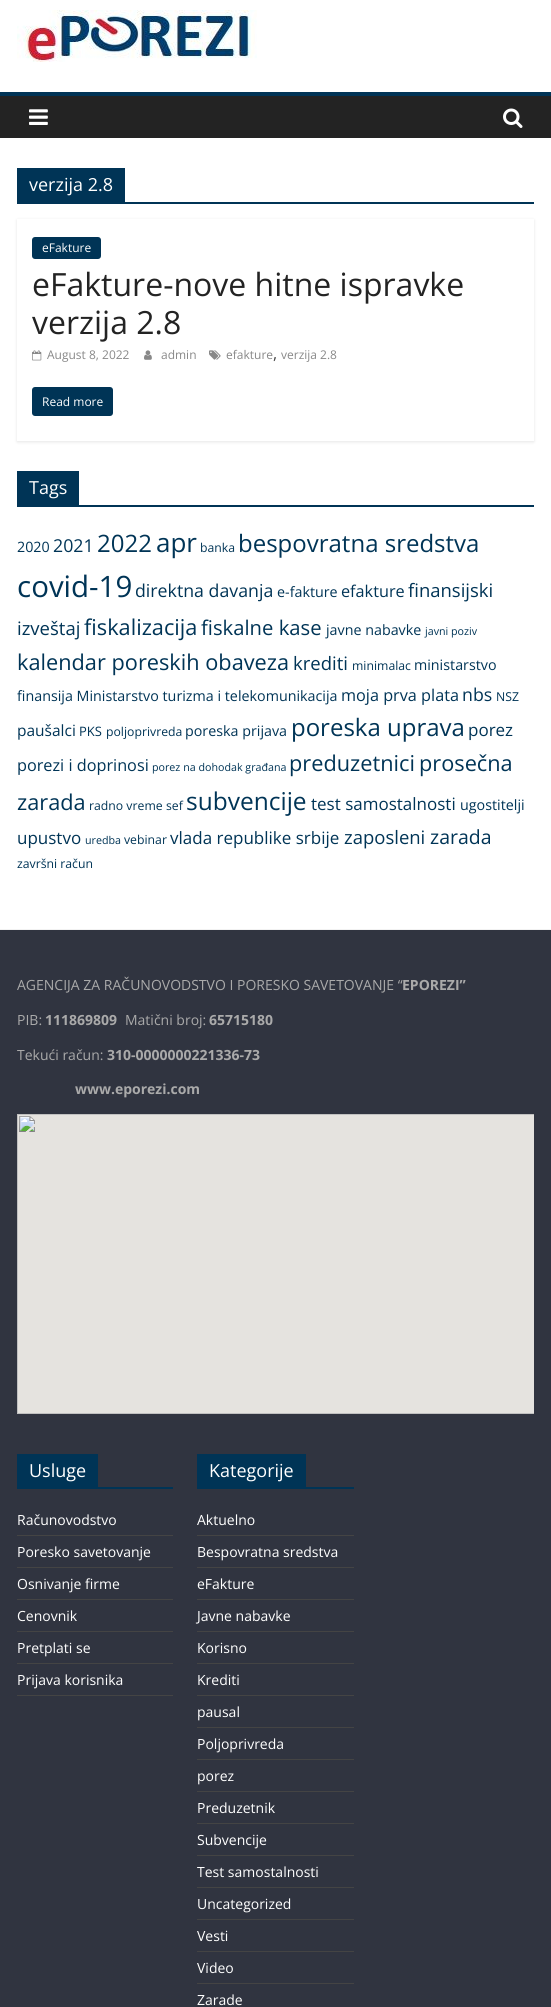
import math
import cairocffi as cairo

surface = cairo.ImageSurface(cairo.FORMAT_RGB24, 551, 2007)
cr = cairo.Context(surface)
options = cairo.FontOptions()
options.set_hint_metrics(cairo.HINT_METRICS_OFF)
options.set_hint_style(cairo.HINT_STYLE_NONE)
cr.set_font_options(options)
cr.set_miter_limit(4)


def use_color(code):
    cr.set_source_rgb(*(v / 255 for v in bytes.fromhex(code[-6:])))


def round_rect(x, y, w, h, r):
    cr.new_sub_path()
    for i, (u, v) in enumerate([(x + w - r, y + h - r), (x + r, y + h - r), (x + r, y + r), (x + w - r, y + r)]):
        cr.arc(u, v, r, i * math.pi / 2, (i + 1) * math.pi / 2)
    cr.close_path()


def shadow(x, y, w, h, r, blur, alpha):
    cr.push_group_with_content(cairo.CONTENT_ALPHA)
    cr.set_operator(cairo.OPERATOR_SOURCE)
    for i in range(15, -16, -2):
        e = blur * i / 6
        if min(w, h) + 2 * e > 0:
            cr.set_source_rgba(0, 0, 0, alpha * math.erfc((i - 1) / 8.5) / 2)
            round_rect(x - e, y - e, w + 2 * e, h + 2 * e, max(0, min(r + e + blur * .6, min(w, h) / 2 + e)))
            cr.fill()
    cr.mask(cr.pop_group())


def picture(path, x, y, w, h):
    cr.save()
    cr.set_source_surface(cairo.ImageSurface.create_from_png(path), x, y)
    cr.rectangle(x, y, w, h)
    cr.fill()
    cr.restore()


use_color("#ffffff")
cr.paint()
picture("img1.png", 17, 10, 240, 52)
use_color("#232323")
cr.rectangle(0, 96, 551, 42)
cr.fill()
use_color("#003456")
cr.rectangle(0, 92, 551, 4)
cr.fill()
picture("img2.png", 29, 109, 19, 16)
picture("img3.png", 503, 108, 20, 20)
cr.rectangle(17, 202, 517, 2)
cr.fill()
cr.rectangle(17, 168, 108, 34)
cr.fill()
cr.select_font_face("Open Sans")
cr.set_font_size(18)
use_color("#ffffff")
cr.move_to(29, 191)
cr.show_text("verzija 2.8")
cr.save()
cr.set_fill_rule(cairo.FILL_RULE_EVEN_ODD)
cr.new_path()
cr.move_to(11, 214)
cr.line_to(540, 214)
cr.line_to(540, 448)
cr.line_to(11, 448)
cr.close_path()
cr.move_to(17, 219)
cr.line_to(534, 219)
cr.line_to(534, 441)
cr.line_to(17, 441)
cr.close_path()
cr.clip()
use_color("#000000")
shadow(17, 220, 517, 222, 0, 1.5, 0.1)
cr.restore()
use_color("#003456")
round_rect(32, 237, 69, 22, 3)
cr.fill()
cr.set_font_size(12)
use_color("#ffffff")
cr.move_to(42, 252)
cr.show_text("eFakture")
cr.set_font_size(32)
use_color("#232323")
cr.move_to(32, 296)
cr.show_text("eFakture-nove hitne ispravke")
cr.move_to(32, 334)
cr.show_text("verzija 2.8")
picture("img4.png", 32, 350, 10, 11)
cr.set_font_size(12)
use_color("#888888")
cr.move_to(47, 359)
cr.show_text("August 8, 2022")
picture("img5.png", 144, 350, 8, 10)
cr.move_to(161, 359)
cr.show_text("admin")
picture("img6.png", 209, 350, 12, 10)
cr.move_to(226, 359)
cr.show_text("efakture")
cr.set_font_size(16)
use_color("#444444")
cr.move_to(273, 359)
cr.show_text(",")
cr.set_font_size(12)
use_color("#888888")
cr.move_to(281, 359)
cr.show_text("verzija 2.8")
use_color("#003456")
round_rect(32, 387, 81, 29, 3)
cr.fill()
use_color("#ffffff")
cr.move_to(42, 406)
cr.show_text("Read more")
use_color("#003456")
cr.rectangle(17, 505, 517, 2)
cr.fill()
cr.rectangle(17, 471, 62, 34)
cr.fill()
cr.set_font_size(18)
use_color("#ffffff")
cr.move_to(29, 494)
cr.show_text("Tags")
cr.set_font_size(14.3)
use_color("#003456")
cr.move_to(17, 552)
cr.show_text("2020")
cr.set_font_size(17.75)
cr.move_to(53, 552)
cr.show_text("2021")
cr.set_font_size(24)
cr.move_to(97, 552)
cr.show_text("2022")
cr.set_font_size(26)
cr.move_to(156, 552)
cr.show_text("apr")
cr.set_font_size(12.25)
cr.move_to(200, 552)
cr.show_text("banka")
cr.set_font_size(24)
cr.move_to(238, 552)
cr.show_text("bespovratna sredstva")
cr.set_font_size(29.5)
cr.move_to(17, 597)
cr.show_text("covid-19")
cr.set_font_size(17.75)
cr.move_to(135, 597)
cr.show_text("direktna davanja")
cr.set_font_size(14.3)
cr.move_to(277, 597)
cr.show_text("e-fakture")
cr.set_font_size(16.25)
cr.move_to(341, 597)
cr.show_text("efakture")
cr.set_font_size(18.5)
cr.move_to(408, 597)
cr.show_text("finansijski")
cr.move_to(17, 635)
cr.show_text("izveštaj")
cr.set_font_size(21.75)
cr.move_to(84, 635)
cr.show_text("fiskalizacija")
cr.set_font_size(20.25)
cr.move_to(201, 635)
cr.show_text("fiskalne kase")
cr.set_font_size(14.3)
cr.move_to(326, 635)
cr.show_text("javne nabavke")
cr.set_font_size(10.7)
cr.move_to(425, 635)
cr.show_text("javni poziv")
cr.set_font_size(21.75)
cr.move_to(17, 670)
cr.show_text("kalendar poreskih obaveza")
cr.set_font_size(18.5)
cr.move_to(293, 670)
cr.show_text("krediti")
cr.set_font_size(12.25)
cr.move_to(352, 670)
cr.show_text("minimalac")
cr.set_font_size(14.3)
cr.move_to(414, 670)
cr.show_text("ministarstvo")
cr.move_to(17, 701)
cr.show_text("finansija Ministarstvo turizma i telekomunikacija")
cr.set_font_size(16.25)
cr.move_to(341, 701)
cr.show_text("moja prva plata")
cr.set_font_size(17.75)
cr.move_to(462, 701)
cr.show_text("nbs")
cr.set_font_size(12.25)
cr.move_to(496, 701)
cr.show_text("NSZ")
cr.set_font_size(15.5)
cr.move_to(17, 736)
cr.show_text("paušalci")
cr.set_font_size(13)
cr.move_to(79, 736)
cr.show_text("PKS")
cr.set_font_size(12.25)
cr.move_to(106, 736)
cr.show_text("poljoprivreda")
cr.set_font_size(14.3)
cr.move_to(185, 736)
cr.show_text("poreska prijava")
cr.set_font_size(24)
cr.move_to(291, 736)
cr.show_text("poreska uprava")
cr.set_font_size(17)
cr.move_to(468, 736)
cr.show_text("porez")
cr.set_font_size(16.25)
cr.move_to(17, 771)
cr.show_text("porezi i doprinosi")
cr.set_font_size(10.7)
cr.move_to(152, 771)
cr.show_text("porez na dohodak građana")
cr.set_font_size(21.75)
cr.move_to(289, 771)
cr.show_text("preduzetnici")
cr.move_to(419, 771)
cr.show_text("prosečna")
cr.move_to(17, 810)
cr.show_text("zarada")
cr.set_font_size(12.25)
cr.move_to(89, 810)
cr.show_text("radno vreme")
cr.move_to(166, 810)
cr.show_text("sef")
cr.set_font_size(24.5)
cr.move_to(186, 810)
cr.show_text("subvencije")
cr.set_font_size(17)
cr.move_to(311, 810)
cr.show_text("test samostalnosti")
cr.set_font_size(14.3)
cr.move_to(460, 810)
cr.show_text("ugostitelji")
cr.set_font_size(17)
cr.move_to(17, 844)
cr.show_text("upustvo")
cr.set_font_size(10.7)
cr.move_to(85, 844)
cr.show_text("uredba")
cr.set_font_size(12.25)
cr.move_to(124, 844)
cr.show_text("vebinar")
cr.set_font_size(17)
cr.move_to(170, 844)
cr.show_text("vlada republike srbije")
cr.set_font_size(18.5)
cr.move_to(344, 844)
cr.show_text("zaposleni")
cr.set_font_size(19.5)
cr.move_to(430, 844)
cr.show_text("zarada")
cr.set_font_size(12.25)
cr.move_to(17, 868)
cr.show_text("završni račun")
use_color("#303440")
cr.rectangle(0, 930, 551, 1077)
cr.fill()
use_color("#f2f2f2")
cr.rectangle(0, 929, 551, 1)
cr.fill()
cr.set_font_size(14)
use_color("#aaaaaa")
cr.move_to(17, 990)
cr.show_text("AGENCIJA ZA RAČUNOVODSTVO I PORESKO SAVETOVANJE “")
cr.select_font_face("Open Sans", cairo.FONT_SLANT_NORMAL, cairo.FONT_WEIGHT_BOLD)
cr.move_to(402, 990)
cr.show_text("EPOREZI”")
cr.select_font_face("Open Sans")
cr.move_to(17, 1025)
cr.show_text("PIB:")
cr.select_font_face("Open Sans", cairo.FONT_SLANT_NORMAL, cairo.FONT_WEIGHT_BOLD)
cr.move_to(45, 1025)
cr.show_text("111869809")
cr.select_font_face("Open Sans")
cr.move_to(125, 1025)
cr.show_text("Matični broj:")
cr.select_font_face("Open Sans", cairo.FONT_SLANT_NORMAL, cairo.FONT_WEIGHT_BOLD)
cr.move_to(209, 1025)
cr.show_text("65715180")
cr.select_font_face("Open Sans")
cr.move_to(17, 1060)
cr.show_text("Tekući račun:")
cr.select_font_face("Open Sans", cairo.FONT_SLANT_NORMAL, cairo.FONT_WEIGHT_BOLD)
cr.move_to(107, 1060)
cr.show_text("310-0000000221336-73")
cr.move_to(75, 1094)
cr.show_text("www.eporezi.com")
picture("img7.png", 17, 1114, 517, 300)
use_color("#003456")
cr.rectangle(17, 1487, 156, 2)
cr.fill()
cr.rectangle(17, 1454, 81, 33)
cr.fill()
cr.select_font_face("Open Sans")
cr.set_font_size(18)
use_color("#ffffff")
cr.move_to(29, 1477)
cr.show_text("Usluge")
use_color("#444444")
cr.rectangle(17, 1535, 156, 1)
cr.fill()
cr.set_font_size(14)
use_color("#ffffff")
cr.move_to(17, 1525)
cr.show_text("Računovodstvo")
use_color("#444444")
cr.rectangle(17, 1567, 156, 1)
cr.fill()
use_color("#ffffff")
cr.move_to(17, 1557)
cr.show_text("Poresko savetovanje")
use_color("#444444")
cr.rectangle(17, 1599, 156, 1)
cr.fill()
use_color("#ffffff")
cr.move_to(17, 1589)
cr.show_text("Osnivanje firme")
use_color("#444444")
cr.rectangle(17, 1631, 156, 1)
cr.fill()
use_color("#ffffff")
cr.move_to(17, 1621)
cr.show_text("Cenovnik")
use_color("#444444")
cr.rectangle(17, 1663, 156, 1)
cr.fill()
use_color("#ffffff")
cr.move_to(17, 1653)
cr.show_text("Pretplati se")
use_color("#444444")
cr.rectangle(17, 1695, 156, 1)
cr.fill()
use_color("#ffffff")
cr.move_to(17, 1685)
cr.show_text("Prijava korisnika")
use_color("#003456")
cr.rectangle(197, 1487, 157, 2)
cr.fill()
cr.rectangle(197, 1454, 109, 33)
cr.fill()
cr.set_font_size(18)
use_color("#ffffff")
cr.move_to(209, 1477)
cr.show_text("Kategorije")
use_color("#444444")
cr.rectangle(197, 1535, 157, 1)
cr.fill()
cr.set_font_size(14)
use_color("#ffffff")
cr.move_to(197, 1525)
cr.show_text("Aktuelno")
use_color("#444444")
cr.rectangle(197, 1567, 157, 1)
cr.fill()
use_color("#ffffff")
cr.move_to(197, 1557)
cr.show_text("Bespovratna sredstva")
use_color("#444444")
cr.rectangle(197, 1599, 157, 1)
cr.fill()
use_color("#ffffff")
cr.move_to(197, 1589)
cr.show_text("eFakture")
use_color("#444444")
cr.rectangle(197, 1631, 157, 1)
cr.fill()
use_color("#ffffff")
cr.move_to(197, 1621)
cr.show_text("Javne nabavke")
use_color("#444444")
cr.rectangle(197, 1663, 157, 1)
cr.fill()
use_color("#ffffff")
cr.move_to(197, 1653)
cr.show_text("Korisno")
use_color("#444444")
cr.rectangle(197, 1695, 157, 1)
cr.fill()
use_color("#ffffff")
cr.move_to(197, 1685)
cr.show_text("Krediti")
use_color("#444444")
cr.rectangle(197, 1727, 157, 1)
cr.fill()
use_color("#ffffff")
cr.move_to(197, 1717)
cr.show_text("pausal")
use_color("#444444")
cr.rectangle(197, 1759, 157, 1)
cr.fill()
use_color("#ffffff")
cr.move_to(197, 1749)
cr.show_text("Poljoprivreda")
use_color("#444444")
cr.rectangle(197, 1791, 157, 1)
cr.fill()
use_color("#ffffff")
cr.move_to(197, 1781)
cr.show_text("porez")
use_color("#444444")
cr.rectangle(197, 1823, 157, 1)
cr.fill()
use_color("#ffffff")
cr.move_to(197, 1813)
cr.show_text("Preduzetnik")
use_color("#444444")
cr.rectangle(197, 1855, 157, 1)
cr.fill()
use_color("#ffffff")
cr.move_to(197, 1845)
cr.show_text("Subvencije")
use_color("#444444")
cr.rectangle(197, 1887, 157, 1)
cr.fill()
use_color("#ffffff")
cr.move_to(197, 1877)
cr.show_text("Test samostalnosti")
use_color("#444444")
cr.rectangle(197, 1919, 157, 1)
cr.fill()
use_color("#ffffff")
cr.move_to(197, 1909)
cr.show_text("Uncategorized")
use_color("#444444")
cr.rectangle(197, 1951, 157, 1)
cr.fill()
use_color("#ffffff")
cr.move_to(197, 1941)
cr.show_text("Vesti")
use_color("#444444")
cr.rectangle(197, 1983, 157, 1)
cr.fill()
use_color("#ffffff")
cr.move_to(197, 1973)
cr.show_text("Video")
cr.move_to(197, 2005)
cr.show_text("Zarade")
surface.write_to_png("result.png")
